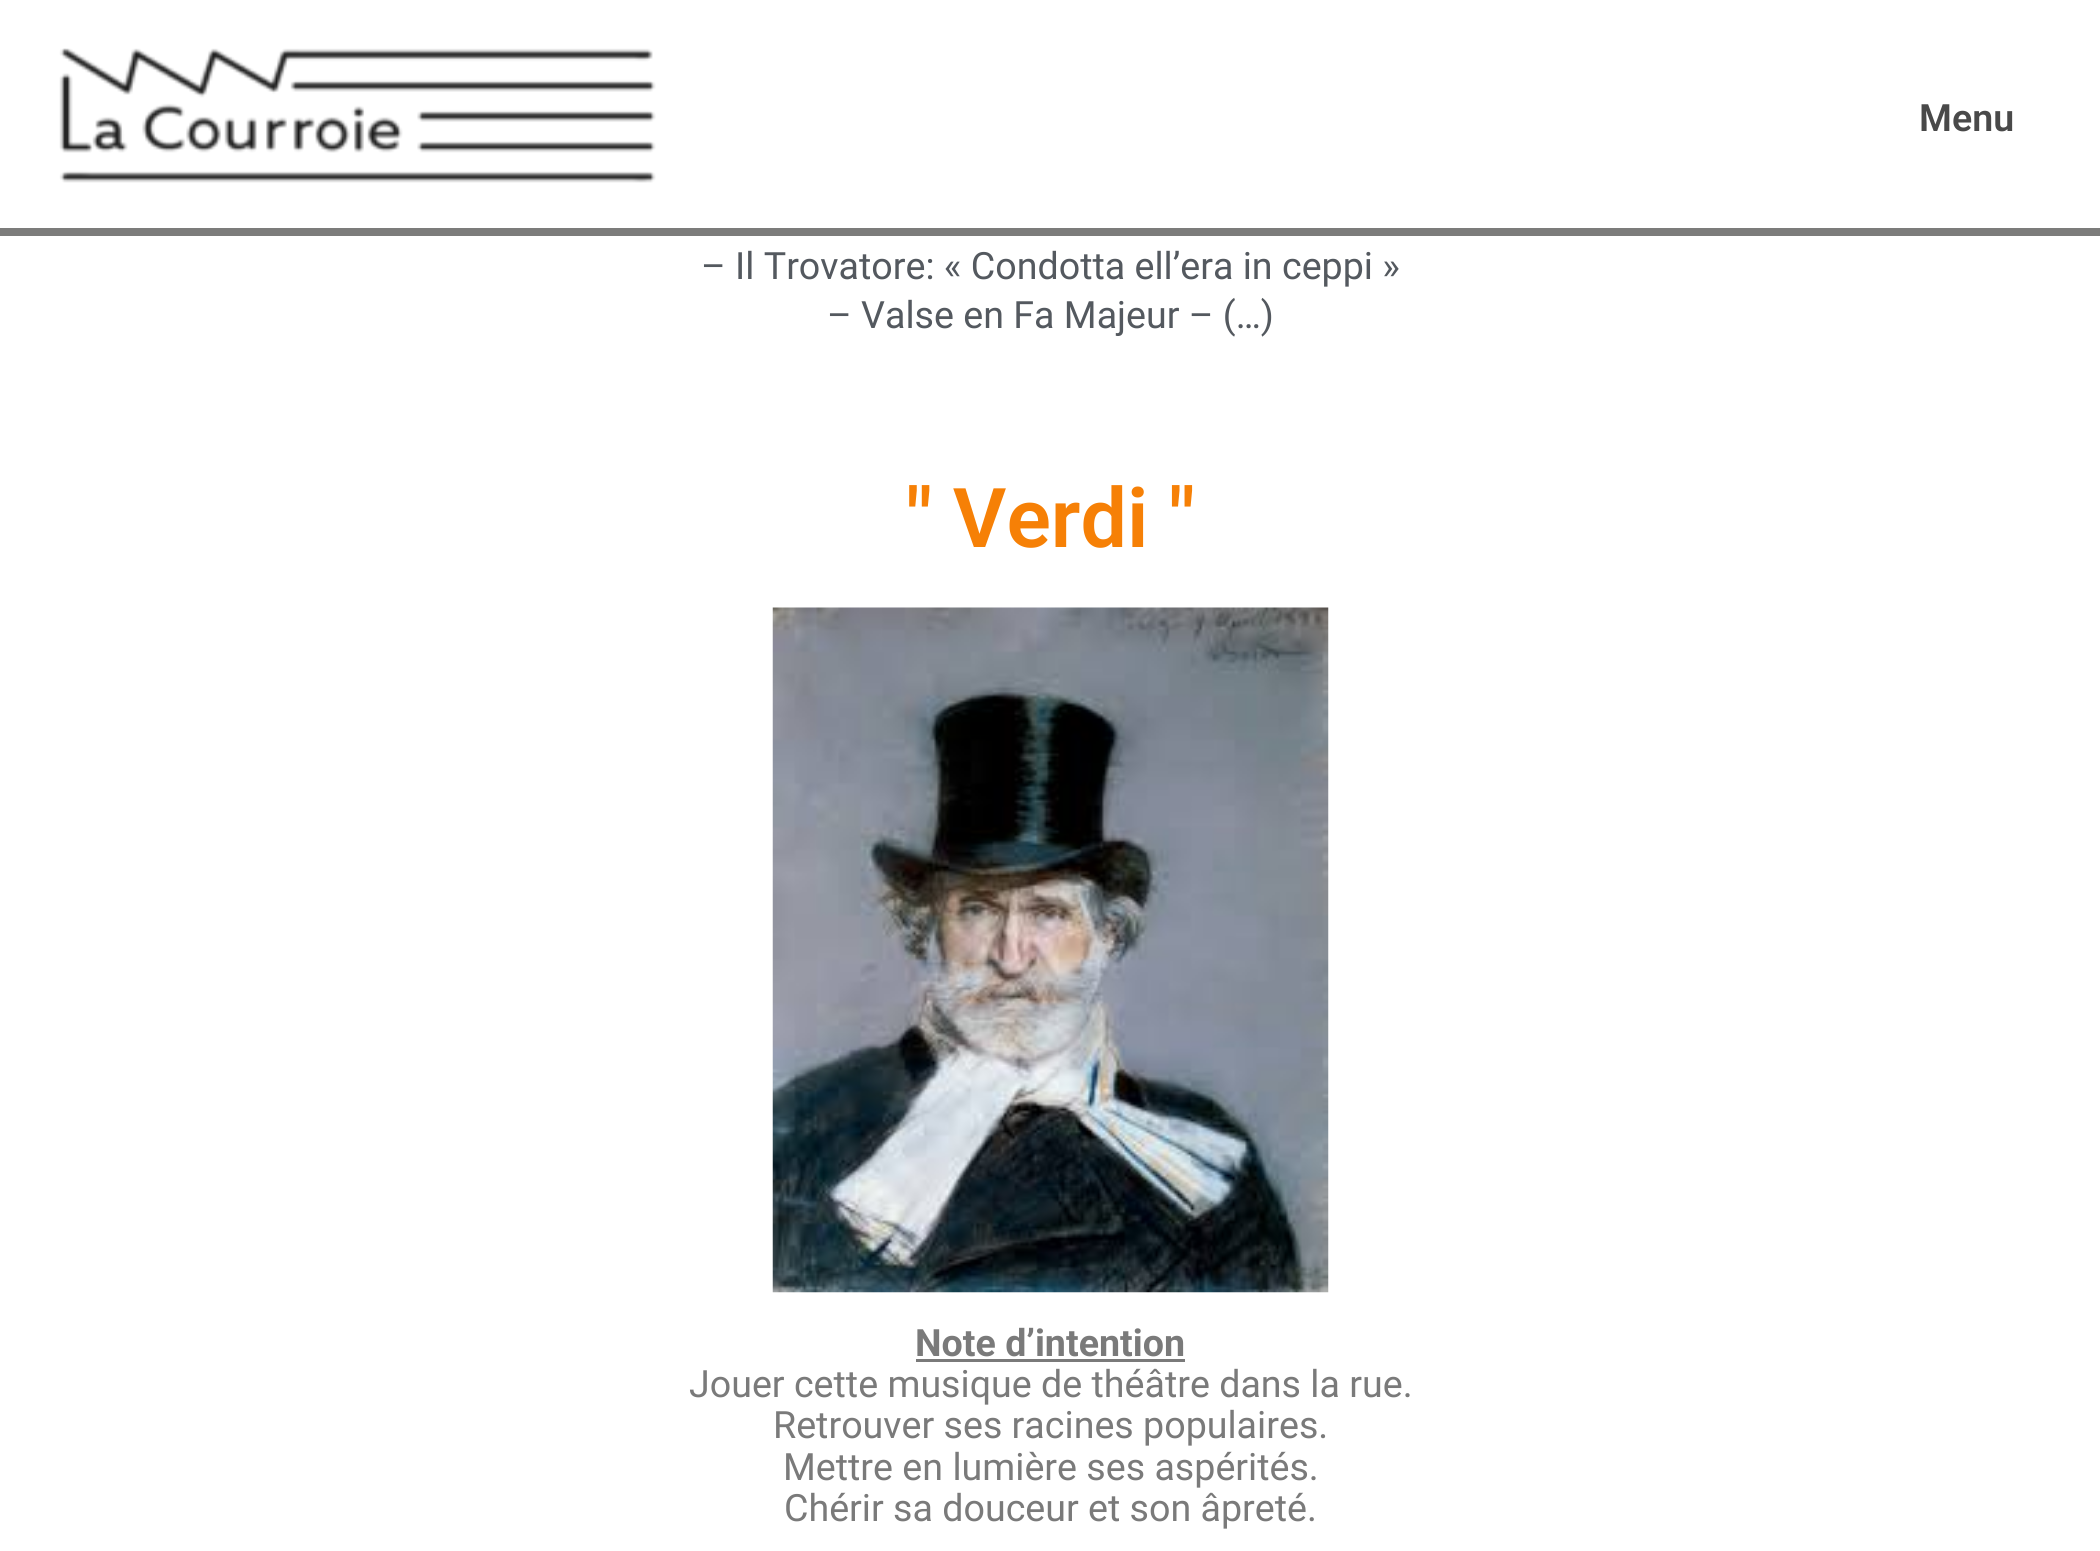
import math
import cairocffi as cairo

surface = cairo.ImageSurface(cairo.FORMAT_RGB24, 2100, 1551)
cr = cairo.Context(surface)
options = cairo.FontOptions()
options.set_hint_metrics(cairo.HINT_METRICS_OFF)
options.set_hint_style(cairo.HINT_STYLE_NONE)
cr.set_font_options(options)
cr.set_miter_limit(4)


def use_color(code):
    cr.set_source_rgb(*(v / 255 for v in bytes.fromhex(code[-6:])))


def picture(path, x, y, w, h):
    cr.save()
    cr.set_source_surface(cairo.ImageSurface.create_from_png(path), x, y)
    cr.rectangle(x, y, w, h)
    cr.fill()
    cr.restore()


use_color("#ffffff")
cr.paint()
use_color("#7c7c7b")
cr.rectangle(0, 228, 2100, 8)
cr.fill()
picture("img1.png", 59, 48, 597, 135)
cr.select_font_face("Roboto SemiBold")
cr.set_font_size(37.6)
use_color("#494949")
cr.move_to(1919, 131)
cr.show_text("Menu")
cr.select_font_face("Roboto")
use_color("#54595f")
cr.move_to(701, 279)
cr.show_text("– Il Trovatore: « Condotta ell’era in ceppi »")
cr.move_to(827, 328)
cr.show_text("– Valse en Fa Majeur – (…)")
cr.select_font_face("Roboto SemiBold")
cr.set_font_size(82.5)
use_color("#f68006")
cr.move_to(906, 547)
cr.show_text("\" Verdi \"")
picture("img2.png", 772, 607, 557, 686)
cr.select_font_face("Roboto", cairo.FONT_SLANT_NORMAL, cairo.FONT_WEIGHT_BOLD)
cr.set_font_size(37.6)
use_color("#7a7a7a")
cr.move_to(915, 1356)
cr.show_text("Note d’intention")
cr.rectangle(916, 1359, 269, 3)
cr.fill()
cr.select_font_face("Roboto")
cr.move_to(689, 1397)
cr.show_text("Jouer cette musique de théâtre dans la rue.")
cr.move_to(773, 1438)
cr.show_text("Retrouver ses racines populaires.")
cr.move_to(783, 1480)
cr.show_text("Mettre en lumière ses aspérités.")
cr.move_to(784, 1521)
cr.show_text("Chérir sa douceur et son âpreté.")
surface.write_to_png("result.png")
